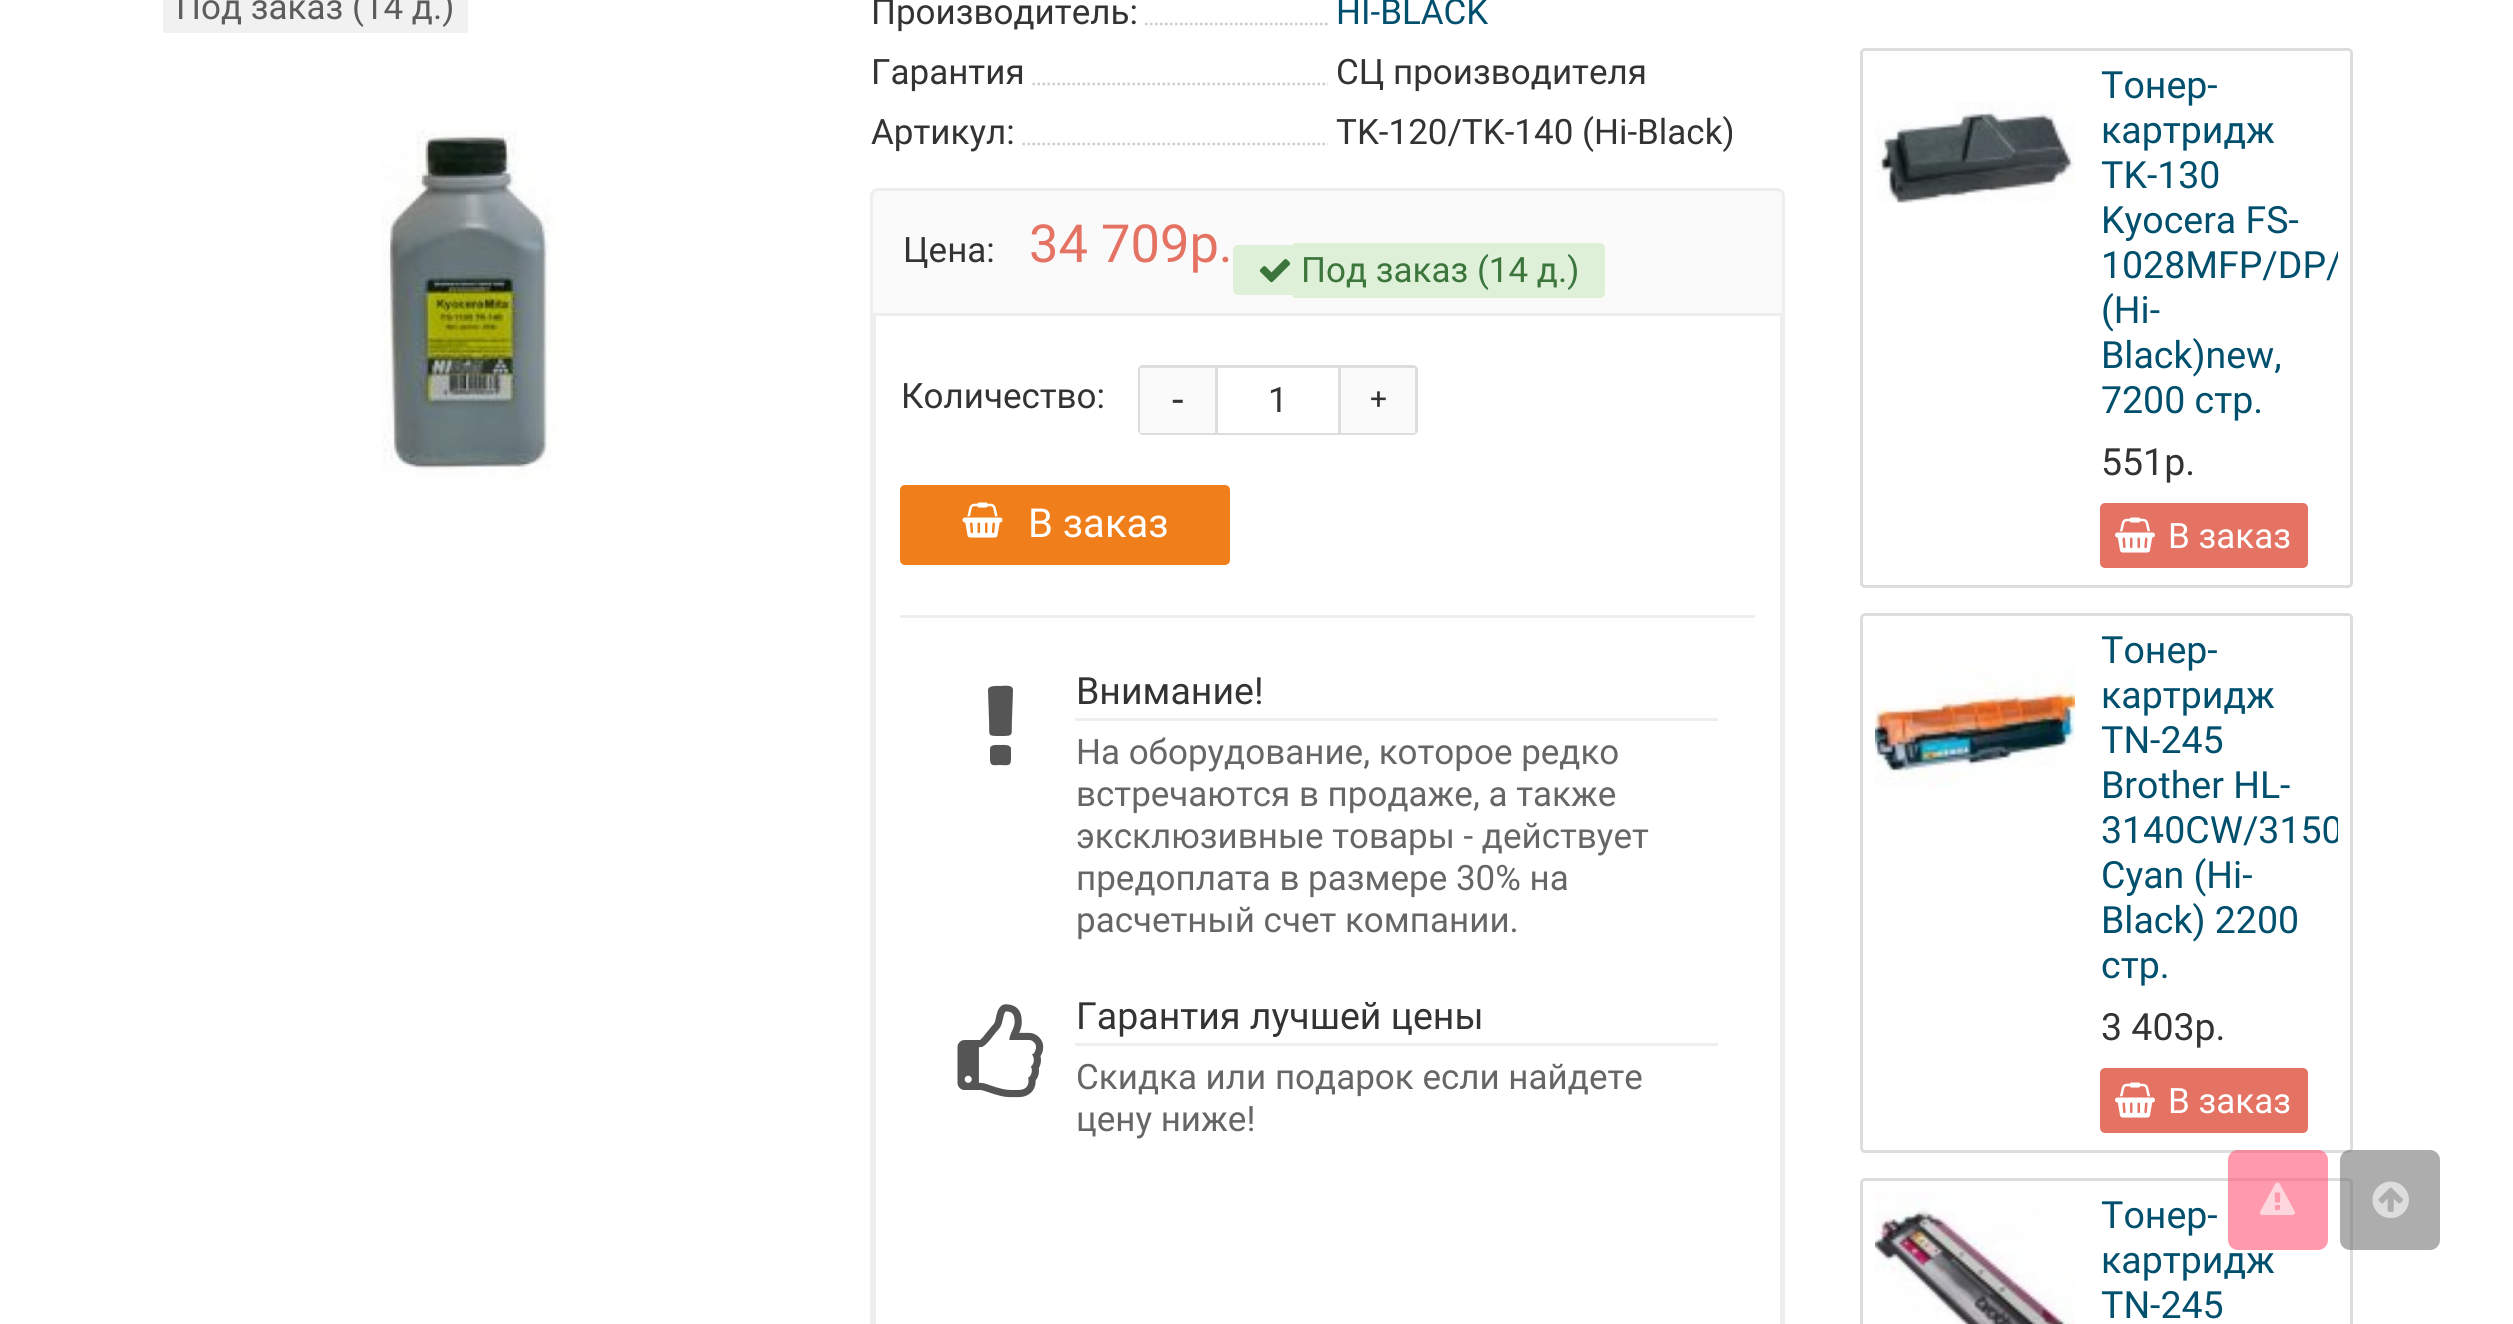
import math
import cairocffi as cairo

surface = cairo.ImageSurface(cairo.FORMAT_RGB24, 2513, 1324)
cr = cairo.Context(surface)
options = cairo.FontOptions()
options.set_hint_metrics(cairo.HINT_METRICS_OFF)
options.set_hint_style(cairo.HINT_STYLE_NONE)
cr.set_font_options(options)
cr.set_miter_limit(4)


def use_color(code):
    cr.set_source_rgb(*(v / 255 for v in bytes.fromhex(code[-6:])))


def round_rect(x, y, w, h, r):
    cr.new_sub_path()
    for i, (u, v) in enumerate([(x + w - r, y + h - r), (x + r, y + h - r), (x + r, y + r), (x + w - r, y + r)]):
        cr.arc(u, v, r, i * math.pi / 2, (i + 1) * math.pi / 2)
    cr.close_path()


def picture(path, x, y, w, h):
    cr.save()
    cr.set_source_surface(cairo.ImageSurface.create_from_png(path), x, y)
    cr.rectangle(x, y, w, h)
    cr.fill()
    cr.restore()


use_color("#ffffff")
cr.paint()
use_color("#f1f1f1")
round_rect(163, -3, 305, 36, 2.5)
cr.fill()
cr.select_font_face("Roboto")
cr.set_font_size(35)
use_color("#5c5c5c")
cr.move_to(176, 19)
cr.show_text("Под заказ (14 д.)")
picture("img1.png", 381, 130, 177, 348)
use_color("#333333")
cr.move_to(871, 24)
cr.show_text("Производитель:")
cr.save()
cr.rectangle(870, 0, 458, 43)
cr.clip()
cr.new_path()
cr.move_to(1145, 24)
cr.line_to(1602.5, 24)
use_color("#cccccc")
cr.set_line_width(2.5)
cr.set_dash([2.5, 2.5])
cr.stroke()
cr.restore()
use_color("#004f6d")
cr.move_to(1336, 24)
cr.show_text("HI-BLACK")
use_color("#333333")
cr.move_to(871, 84)
cr.show_text("Гарантия")
cr.save()
cr.rectangle(870, 43, 458, 60)
cr.clip()
cr.new_path()
cr.move_to(1032.5, 84)
cr.line_to(1490, 84)
use_color("#cccccc")
cr.set_line_width(2.5)
cr.set_dash([2.5, 2.5])
cr.stroke()
cr.restore()
cr.move_to(1336, 84)
cr.show_text("СЦ производителя")
cr.move_to(871, 144)
cr.show_text("Артикул:")
cr.save()
cr.rectangle(870, 103, 458, 60)
cr.clip()
cr.new_path()
cr.move_to(1022.5, 144)
cr.line_to(1480, 144)
use_color("#cccccc")
cr.set_line_width(2.5)
cr.set_dash([2.5, 2.5])
cr.stroke()
cr.restore()
cr.move_to(1336, 144)
cr.show_text("TK-120/TK-140 (Hi-Black)")
use_color("#fafafa")
round_rect(871.5, 189.5, 912, 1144, 6.5)
cr.fill_preserve()
use_color("#eeeeee")
cr.set_line_width(3)
cr.stroke()
use_color("#333333")
cr.move_to(903, 262)
cr.show_text("Цена:")
cr.set_font_size(52.5)
use_color("#e47364")
cr.move_to(1029, 262)
cr.show_text("34 709р.")
use_color("#dff0d8")
cr.new_path()
cr.move_to(1238, 245)
cr.line_to(1293, 245)
cr.line_to(1293, 295)
cr.line_to(1238, 295)
cr.curve_to(1235, 295, 1233, 293, 1233, 290)
cr.line_to(1233, 250)
cr.curve_to(1233, 247, 1235, 245, 1238, 245)
cr.close_path()
cr.fill()
cr.new_path()
cr.move_to(1293, 243)
cr.line_to(1600, 243)
cr.curve_to(1603, 243, 1605, 245, 1605, 248)
cr.line_to(1605, 293)
cr.curve_to(1605, 296, 1603, 298, 1600, 298)
cr.line_to(1293, 298)
cr.close_path()
cr.fill()
picture("img2.png", 1259, 259, 32, 24)
cr.set_font_size(35)
use_color("#3c763d")
cr.move_to(1301, 282)
cr.show_text("Под заказ (14 д.)")
use_color("#ffffff")
cr.rectangle(874.5, 314.5, 907, 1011)
cr.fill_preserve()
use_color("#eeeeee")
cr.stroke()
use_color("#333333")
cr.move_to(901, 408)
cr.show_text("Количество:")
round_rect(1139.5, 366.5, 277, 67, 3.5)
use_color("#dddddd")
cr.stroke()
use_color("#ffffff")
cr.rectangle(1218, 432, 120, 1)
cr.fill()
use_color("#dddddd")
cr.rectangle(1338, 368, 3, 65)
cr.fill()
cr.rectangle(1215, 368, 3, 65)
cr.fill()
use_color("#333333")
cr.move_to(1268, 412)
cr.show_text("1")
use_color("#fafafa")
cr.rectangle(1140, 368, 75, 65)
cr.fill()
cr.set_font_size(42)
use_color("#333333")
cr.move_to(1172, 414)
cr.show_text("-")
use_color("#fafafa")
cr.rectangle(1341, 368, 74, 65)
cr.fill()
cr.set_font_size(30)
use_color("#333333")
cr.move_to(1370, 409)
cr.show_text("+")
use_color("#f07f1b")
round_rect(900, 485, 330, 80, 5)
cr.fill()
picture("img3.png", 962, 502, 41, 36)
cr.set_font_size(40)
use_color("#ffffff")
cr.move_to(1028, 537)
cr.show_text("В заказ")
use_color("#eeeeee")
cr.rectangle(900, 615, 855, 3)
cr.fill()
use_color("#555555")
cr.new_path()
cr.move_to(1011, 749)
cr.line_to(1011, 759)
cr.curve_to(1011, 767, 1007, 765, 1000, 765)
cr.curve_to(994, 765, 990, 767, 990, 759)
cr.line_to(990, 749)
cr.curve_to(990, 744, 997, 745, 1000, 745)
cr.curve_to(1003, 745, 1011, 744, 1011, 749)
cr.close_path()
cr.move_to(1013, 690)
cr.line_to(1012, 719)
cr.curve_to(1011, 736, 1015, 736, 1000, 736)
cr.curve_to(986, 736, 990, 736, 989, 719)
cr.line_to(988, 690)
cr.curve_to(988, 685, 998, 686, 1000, 686)
cr.curve_to(1003, 686, 1013, 684, 1013, 690)
cr.close_path()
cr.fill()
cr.set_font_size(37.5)
use_color("#333333")
cr.move_to(1076, 704)
cr.show_text("Внимание!")
use_color("#eeeeee")
cr.rectangle(1075, 718, 643, 3)
cr.fill()
cr.set_font_size(35)
use_color("#666666")
cr.move_to(1076, 764)
cr.show_text("На оборудование, которое редко")
cr.move_to(1076, 806)
cr.show_text("встречаются в продаже, а также")
cr.move_to(1076, 848)
cr.show_text("эксклюзивные товары - действует")
cr.move_to(1076, 890)
cr.show_text("предоплата в размере 30% на")
cr.move_to(1076, 932)
cr.show_text("расчетный счет компании.")
picture("img4.png", 957, 1004, 87, 94)
cr.set_font_size(37.5)
use_color("#333333")
cr.move_to(1076, 1029)
cr.show_text("Гарантия лучшей цены")
use_color("#eeeeee")
cr.rectangle(1075, 1043, 643, 3)
cr.fill()
cr.set_font_size(35)
use_color("#666666")
cr.move_to(1076, 1089)
cr.show_text("Скидка или подарок если найдете")
cr.move_to(1076, 1131)
cr.show_text("цену ниже!")
round_rect(1861.5, 49.5, 490, 537, 3.5)
use_color("#dddddd")
cr.stroke()
picture("img5.png", 1875, 102, 200, 101)
cr.set_font_size(37.5)
use_color("#004f6d")
cr.move_to(2101, 98)
cr.show_text("Тонер-")
cr.move_to(2101, 143)
cr.show_text("картридж")
cr.move_to(2101, 188)
cr.show_text("TK-130")
cr.move_to(2101, 233)
cr.show_text("Kyocera FS-")
cr.save()
cr.rectangle(2100, 63, 238, 360)
cr.clip()
cr.move_to(2101, 278)
cr.show_text("1028MFP/DP/")
cr.restore()
cr.move_to(2101, 323)
cr.show_text("(Hi-")
cr.move_to(2101, 368)
cr.show_text("Black)new,")
cr.move_to(2101, 413)
cr.show_text("7200 стр.")
use_color("#333333")
cr.move_to(2101, 475)
cr.show_text("551р.")
use_color("#e47364")
round_rect(2102.5, 505.5, 203, 60, 2.5)
cr.fill_preserve()
cr.set_line_width(5)
cr.stroke()
picture("img6.png", 2115, 517, 40, 36)
cr.set_font_size(35)
use_color("#ffffff")
cr.move_to(2168, 548)
cr.show_text("В заказ")
round_rect(1861.5, 614.5, 490, 537, 3.5)
use_color("#dddddd")
cr.set_line_width(3)
cr.stroke()
picture("img7.png", 1875, 667, 200, 121)
cr.set_font_size(37.5)
use_color("#004f6d")
cr.move_to(2101, 663)
cr.show_text("Тонер-")
cr.move_to(2101, 708)
cr.show_text("картридж")
cr.move_to(2101, 753)
cr.show_text("TN-245")
cr.move_to(2101, 798)
cr.show_text("Brother HL-")
cr.save()
cr.rectangle(2100, 628, 238, 360)
cr.clip()
cr.move_to(2101, 843)
cr.show_text("3140CW/3150")
cr.restore()
cr.move_to(2101, 888)
cr.show_text("Cyan (Hi-")
cr.move_to(2101, 933)
cr.show_text("Black) 2200")
cr.move_to(2101, 978)
cr.show_text("стр.")
use_color("#333333")
cr.move_to(2101, 1040)
cr.show_text("3 403р.")
use_color("#e47364")
round_rect(2102.5, 1070.5, 203, 60, 2.5)
cr.fill_preserve()
cr.set_line_width(5)
cr.stroke()
picture("img6.png", 2115, 1082, 40, 36)
cr.set_font_size(35)
use_color("#ffffff")
cr.move_to(2168, 1113)
cr.show_text("В заказ")
round_rect(1861.5, 1179.5, 490, 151, 3.5)
use_color("#dddddd")
cr.set_line_width(3)
cr.stroke()
picture("img8.png", 1875, 1192, 200, 132)
cr.set_font_size(37.5)
use_color("#004f6d")
cr.move_to(2101, 1228)
cr.show_text("Тонер-")
cr.move_to(2101, 1273)
cr.show_text("картридж")
cr.move_to(2101, 1318)
cr.show_text("TN-245")
cr.set_source_rgba(1, 0.345, 0.467, 0.6)
round_rect(2228, 1150, 100, 100, 10)
cr.fill()
picture("img9.png", 2260, 1182, 35, 33)
cr.set_source_rgba(0.467, 0.467, 0.467, 0.6)
round_rect(2340, 1150, 100, 100, 10)
cr.fill()
picture("img10.png", 2372, 1181, 37, 37)
surface.write_to_png("result.png")
